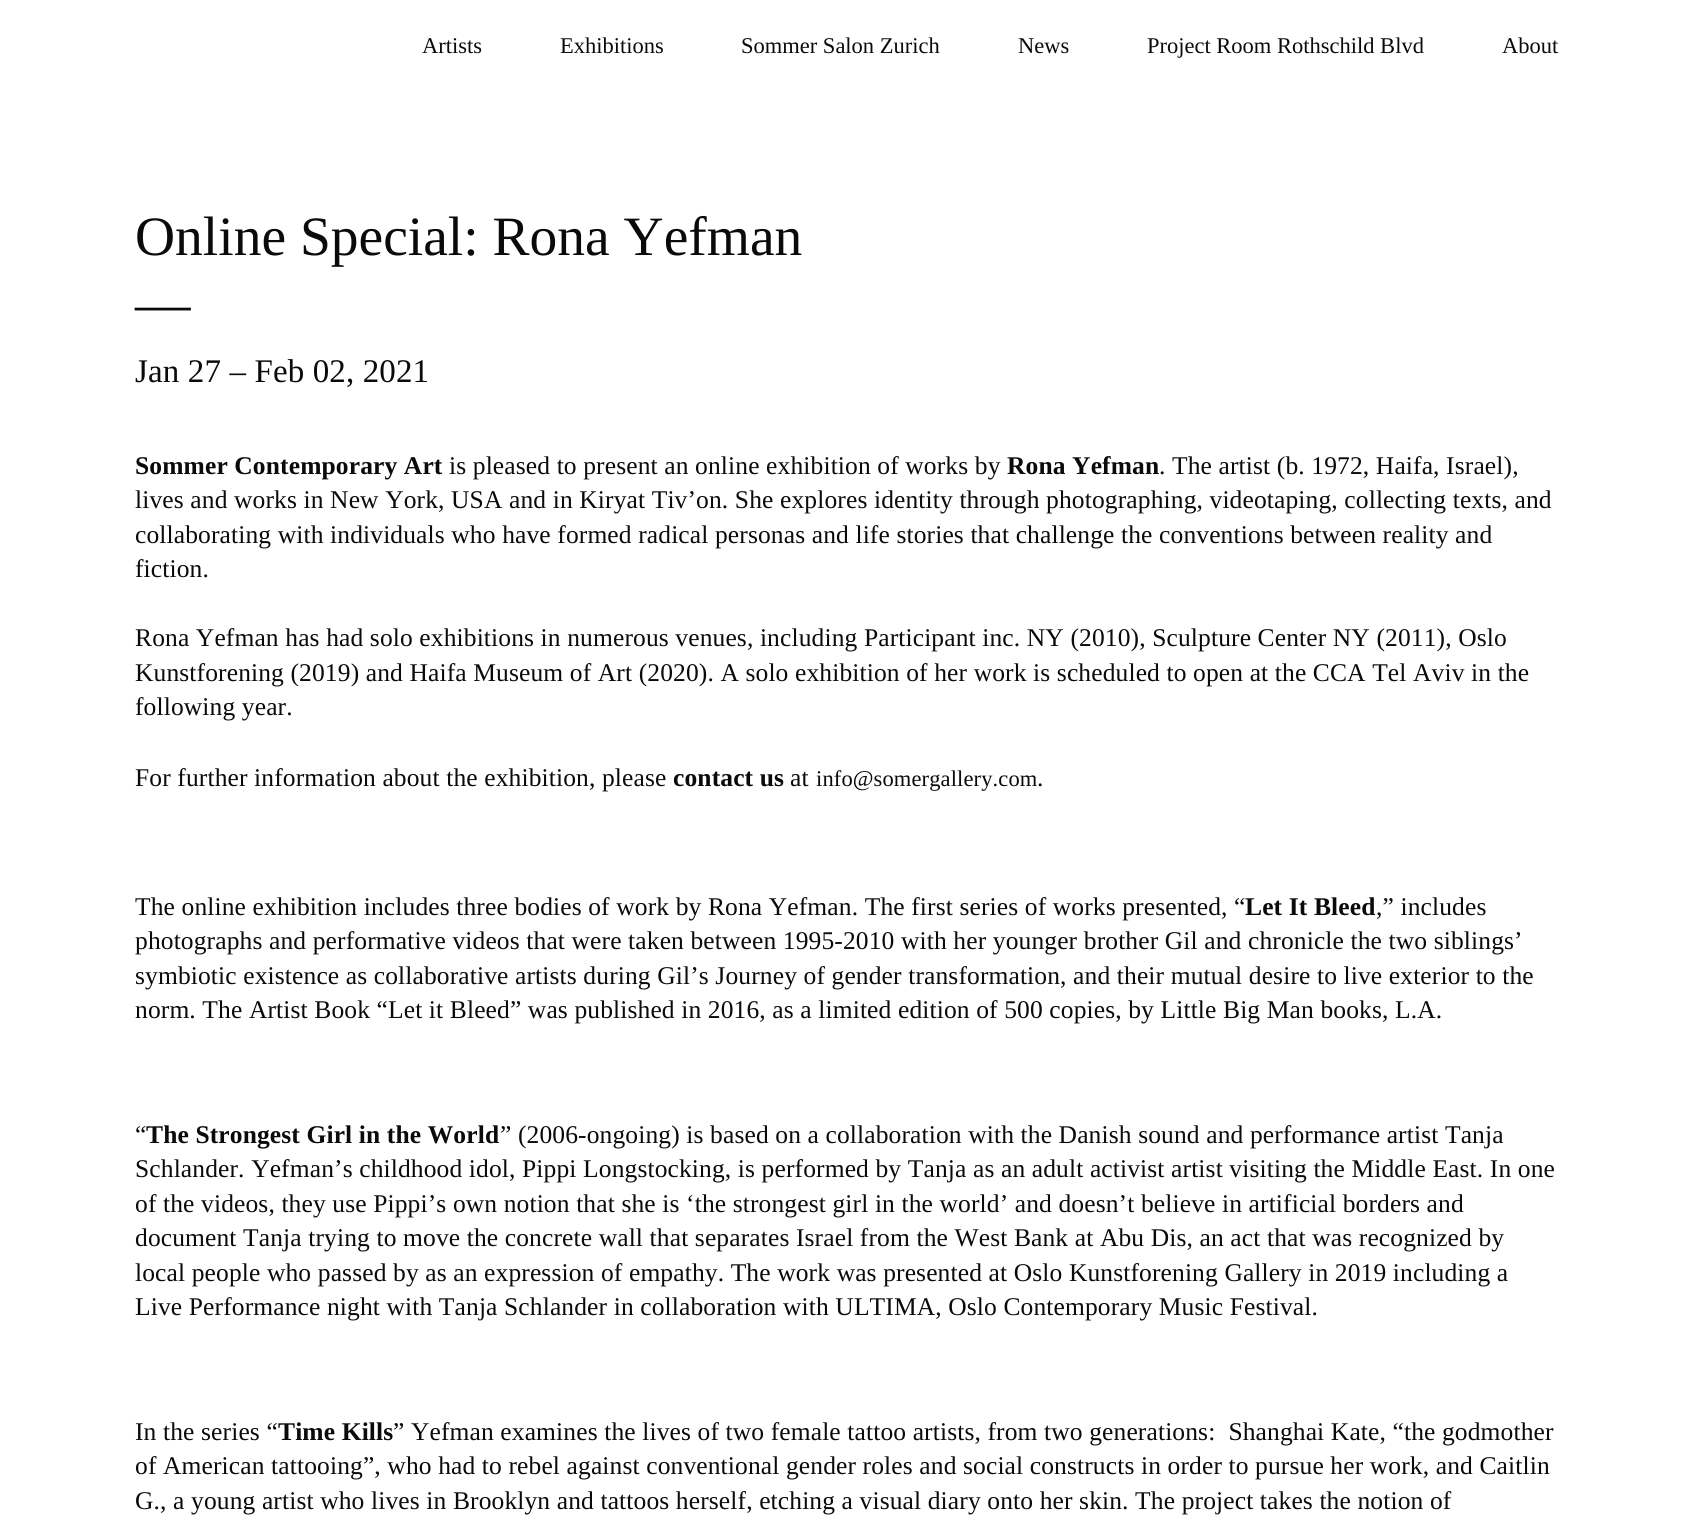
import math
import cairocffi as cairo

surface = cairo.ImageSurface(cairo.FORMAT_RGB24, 1692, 1516)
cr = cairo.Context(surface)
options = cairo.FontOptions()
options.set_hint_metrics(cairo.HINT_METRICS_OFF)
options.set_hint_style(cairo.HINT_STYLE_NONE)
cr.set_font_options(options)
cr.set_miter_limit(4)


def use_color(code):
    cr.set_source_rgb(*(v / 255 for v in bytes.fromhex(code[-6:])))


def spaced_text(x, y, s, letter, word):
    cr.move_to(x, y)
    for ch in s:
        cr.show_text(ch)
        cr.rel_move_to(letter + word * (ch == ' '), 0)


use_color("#ffffff")
cr.paint()
cr.select_font_face("Liberation Serif")
cr.set_font_size(22.5)
use_color("#0a0a0a")
cr.move_to(422, 53)
cr.show_text("Artists")
cr.move_to(560, 53)
cr.show_text("Exhibitions")
cr.move_to(741, 53)
cr.show_text("Sommer Salon Zurich")
cr.move_to(1018, 53)
cr.show_text("News")
cr.move_to(1147, 53)
cr.show_text("Project Room Rothschild Blvd")
cr.move_to(1502, 53)
cr.show_text("About")
cr.set_font_size(55.5)
cr.move_to(135, 255)
cr.show_text("Online Special: Rona Yefman")
cr.move_to(135, 322)
cr.show_text("—")
cr.set_font_size(33)
spaced_text(135, 382, "Jan 27 – Feb 02, 2021", 0.13, 0)
cr.select_font_face("Liberation Serif", cairo.FONT_SLANT_NORMAL, cairo.FONT_WEIGHT_BOLD)
cr.set_font_size(25.5)
spaced_text(135, 474, "Sommer Contemporary Art", 0.13, 0)
cr.select_font_face("Liberation Serif")
spaced_text(449, 474, "is pleased to present an online exhibition of works by", 0.13, 0)
cr.select_font_face("Liberation Serif", cairo.FONT_SLANT_NORMAL, cairo.FONT_WEIGHT_BOLD)
spaced_text(1007, 474, "Rona Yefman", 0.13, 0)
cr.select_font_face("Liberation Serif")
spaced_text(1159, 474, ". The artist (b. 1972, Haifa, Israel),", 0.13, 0)
spaced_text(135, 508, "lives and works in New York, USA and in Kiryat Tiv’on. She explores identity through photographing, videotaping, collecting texts, and", 0.13, 0)
spaced_text(135, 543, "collaborating with individuals who have formed radical personas and life stories that challenge the conventions between reality and", 0.13, 0)
spaced_text(135, 577, "fiction.", 0.13, 0)
spaced_text(135, 646, "Rona Yefman has had solo exhibitions in numerous venues, including Participant inc. NY (2010), Sculpture Center NY (2011), Oslo", 0.13, 0)
spaced_text(135, 681, "Kunstforening (2019) and Haifa Museum of Art (2020). A solo exhibition of her work is scheduled to open at the CCA Tel Aviv in the", 0.13, 0)
spaced_text(135, 715, "following year.", 0.13, 0)
spaced_text(135, 786, "For further information about the exhibition, please", 0.13, 0)
cr.select_font_face("Liberation Serif", cairo.FONT_SLANT_NORMAL, cairo.FONT_WEIGHT_BOLD)
spaced_text(673, 786, "contact us", 0.13, 0)
cr.select_font_face("Liberation Serif")
spaced_text(790, 786, "at", 0.13, 0)
cr.set_font_size(22.5)
spaced_text(816, 786, "info@somergallery.com", 0.13, 0)
cr.set_font_size(25.5)
spaced_text(1037, 786, ".", 0.13, 0)
spaced_text(135, 915, "The online exhibition includes three bodies of work by Rona Yefman. The first series of works presented, “", 0.13, 0)
cr.select_font_face("Liberation Serif", cairo.FONT_SLANT_NORMAL, cairo.FONT_WEIGHT_BOLD)
spaced_text(1245, 915, "Let It Bleed", 0.13, 0)
cr.select_font_face("Liberation Serif")
spaced_text(1376, 915, ",” includes", 0.13, 0)
spaced_text(135, 949, "photographs and performative videos that were taken between 1995-2010 with her younger brother Gil and chronicle the two siblings’", 0.13, 0)
spaced_text(135, 984, "symbiotic existence as collaborative artists during Gil’s Journey of gender transformation, and their mutual desire to live exterior to the", 0.13, 0)
spaced_text(135, 1018, "norm. The Artist Book “Let it Bleed” was published in 2016, as a limited edition of 500 copies, by Little Big Man books, L.A.", 0.13, 0)
spaced_text(135, 1143, "“", 0.13, 0)
cr.select_font_face("Liberation Serif", cairo.FONT_SLANT_NORMAL, cairo.FONT_WEIGHT_BOLD)
spaced_text(146, 1143, "The Strongest Girl in the World", 0.13, 0)
cr.select_font_face("Liberation Serif")
spaced_text(500, 1143, "” (2006-ongoing) is based on a collaboration with the Danish sound and performance artist Tanja", 0.13, 0)
spaced_text(135, 1177, "Schlander. Yefman’s childhood idol, Pippi Longstocking, is performed by Tanja as an adult activist artist visiting the Middle East. In one", 0.13, 0)
spaced_text(135, 1212, "of the videos, they use Pippi’s own notion that she is ‘the strongest girl in the world’ and doesn’t believe in artificial borders and", 0.13, 0)
spaced_text(135, 1246, "document Tanja trying to move the concrete wall that separates Israel from the West Bank at Abu Dis, an act that was recognized by", 0.13, 0)
spaced_text(135, 1281, "local people who passed by as an expression of empathy. The work was presented at Oslo Kunstforening Gallery in 2019 including a", 0.13, 0)
spaced_text(135, 1315, "Live Performance night with Tanja Schlander in collaboration with ULTIMA, Oslo Contemporary Music Festival.", 0.13, 0)
spaced_text(135, 1440, "In the series “", 0.13, 0)
cr.select_font_face("Liberation Serif", cairo.FONT_SLANT_NORMAL, cairo.FONT_WEIGHT_BOLD)
spaced_text(278, 1440, "Time Kills", 0.13, 0)
cr.select_font_face("Liberation Serif")
spaced_text(393, 1440, "” Yefman examines the lives of two female tattoo artists, from two generations:  Shanghai Kate, “the godmother", 0.13, 0)
spaced_text(135, 1474, "of American tattooing”, who had to rebel against conventional gender roles and social constructs in order to pursue her work, and Caitlin", 0.13, 0)
spaced_text(135, 1509, "G., a young artist who lives in Brooklyn and tattoos herself, etching a visual diary onto her skin. The project takes the notion of", 0.13, 0)
surface.write_to_png("result.png")
